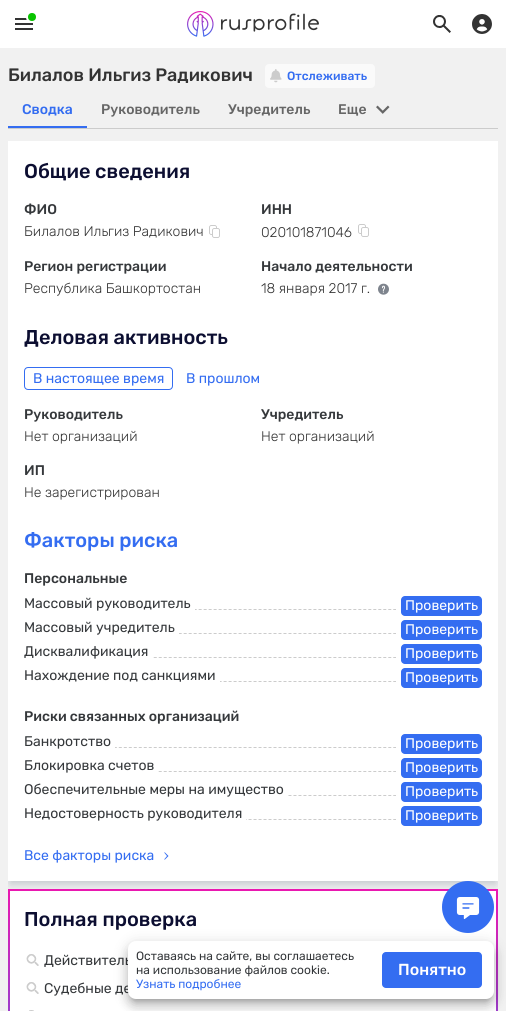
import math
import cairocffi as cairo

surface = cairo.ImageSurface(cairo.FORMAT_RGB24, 506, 1011)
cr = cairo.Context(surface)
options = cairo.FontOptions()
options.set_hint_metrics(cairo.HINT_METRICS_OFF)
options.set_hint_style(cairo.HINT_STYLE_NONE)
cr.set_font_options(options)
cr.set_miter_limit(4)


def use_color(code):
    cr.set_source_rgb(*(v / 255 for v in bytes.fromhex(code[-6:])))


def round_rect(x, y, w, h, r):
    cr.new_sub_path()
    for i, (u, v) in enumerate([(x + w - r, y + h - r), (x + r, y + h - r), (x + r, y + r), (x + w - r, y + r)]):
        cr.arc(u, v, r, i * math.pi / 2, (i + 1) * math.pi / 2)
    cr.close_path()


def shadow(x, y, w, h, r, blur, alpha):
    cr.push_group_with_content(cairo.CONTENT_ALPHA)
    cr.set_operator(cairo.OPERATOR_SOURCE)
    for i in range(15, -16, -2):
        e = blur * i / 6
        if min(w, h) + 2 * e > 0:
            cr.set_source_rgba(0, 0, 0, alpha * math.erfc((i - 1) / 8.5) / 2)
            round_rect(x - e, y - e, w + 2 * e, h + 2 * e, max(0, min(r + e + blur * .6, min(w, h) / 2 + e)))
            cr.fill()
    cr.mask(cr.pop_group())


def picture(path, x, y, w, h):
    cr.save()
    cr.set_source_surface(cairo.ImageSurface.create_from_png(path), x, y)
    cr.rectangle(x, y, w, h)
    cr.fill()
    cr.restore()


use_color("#f1f1f1")
cr.paint()
use_color("#ffffff")
cr.rectangle(0, 0, 506, 48)
cr.fill()
use_color("#333333")
cr.rectangle(15, 18, 18, 2)
cr.fill()
use_color("#09c400")
cr.arc(32, 17, 5, 0, 2 * math.pi)
cr.fill_preserve()
use_color("#ffffff")
cr.stroke()
use_color("#333333")
cr.rectangle(15, 28, 18, 2)
cr.fill()
cr.rectangle(15, 23, 18, 2)
cr.fill()
picture("img1.png", 187, 11, 132, 26)
picture("img2.png", 433, 15, 18, 18)
picture("img3.png", 472, 14, 20, 20)
cr.select_font_face("Rubik Medium")
cr.set_font_size(18)
cr.move_to(8, 81)
cr.show_text("Билалов Ильгиз Радикович")
use_color("#fafafa")
round_rect(265, 64, 110, 24, 4)
cr.fill()
picture("img4.png", 270, 69, 12, 14)
cr.set_font_size(12)
use_color("#346df1")
cr.move_to(287, 80)
cr.show_text("Отслеживать")
use_color("#cccccc")
cr.rectangle(8, 128, 490, 1)
cr.fill()
use_color("#346df1")
cr.rectangle(8, 126, 79, 2)
cr.fill()
cr.set_font_size(14)
cr.move_to(22, 114)
cr.show_text("Сводка")
use_color("#666666")
cr.move_to(101, 114)
cr.show_text("Руководитель")
cr.move_to(228, 114)
cr.show_text("Учредитель")
cr.move_to(338, 114)
cr.show_text("Еще")
picture("img5.png", 376, 105, 14, 9)
cr.save()
cr.rectangle(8, 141, 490, 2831)
cr.clip()
use_color("#304758")
shadow(10, 148, 486, 736, 0, 5, 0.25)
cr.restore()
use_color("#ffffff")
cr.rectangle(8, 141, 490, 740)
cr.fill()
cr.set_font_size(20)
use_color("#0c0e31")
cr.move_to(24, 178)
cr.show_text("Общие сведения")
cr.set_font_size(14)
use_color("#35383b")
cr.move_to(24, 214)
cr.show_text("ФИО")
cr.select_font_face("Rubik Light")
use_color("#333333")
cr.move_to(24, 236)
cr.show_text("Билалов Ильгиз Радикович")
picture("img6.png", 209, 225, 11, 13)
cr.select_font_face("Rubik Medium")
use_color("#35383b")
cr.move_to(261, 214)
cr.show_text("ИНН")
cr.select_font_face("Rubik Light")
use_color("#333333")
cr.move_to(261, 237)
cr.show_text("020101871046")
picture("img6.png", 358, 224, 11, 13)
cr.select_font_face("Rubik Medium")
use_color("#35383b")
cr.move_to(24, 271)
cr.show_text("Регион регистрации")
cr.select_font_face("Rubik Light")
use_color("#333333")
cr.move_to(24, 293)
cr.show_text("Республика Башкортостан")
cr.select_font_face("Rubik Medium")
use_color("#35383b")
cr.move_to(261, 271)
cr.show_text("Начало деятельности")
cr.select_font_face("Rubik Light")
use_color("#333333")
cr.move_to(261, 293)
cr.show_text("18 января 2017 г.")
picture("img7.png", 378, 283, 11, 12)
cr.select_font_face("Rubik Medium")
cr.set_font_size(20)
use_color("#0c0e31")
cr.move_to(24, 344)
cr.show_text("Деловая активность")
round_rect(24.5, 367.5, 148, 22, 3.5)
use_color("#346df1")
cr.set_line_width(1)
cr.stroke()
cr.select_font_face("Rubik")
cr.set_font_size(14)
cr.move_to(33, 383)
cr.show_text("В настоящее время")
cr.move_to(186, 383)
cr.show_text("В прошлом")
cr.select_font_face("Rubik Medium")
use_color("#35383b")
cr.move_to(24, 419)
cr.show_text("Руководитель")
cr.select_font_face("Rubik Light")
use_color("#333333")
cr.move_to(24, 441)
cr.show_text("Нет организаций")
cr.select_font_face("Rubik Medium")
use_color("#35383b")
cr.move_to(261, 419)
cr.show_text("Учредитель")
cr.select_font_face("Rubik Light")
use_color("#333333")
cr.move_to(261, 441)
cr.show_text("Нет организаций")
cr.select_font_face("Rubik Medium")
use_color("#35383b")
cr.move_to(24, 475)
cr.show_text("ИП")
cr.select_font_face("Rubik Light")
use_color("#333333")
cr.move_to(24, 497)
cr.show_text("Не зарегистрирован")
cr.select_font_face("Rubik Medium")
cr.set_font_size(20)
use_color("#346df1")
cr.move_to(24, 547)
cr.show_text("Факторы риска")
cr.set_font_size(14)
use_color("#35383b")
cr.move_to(24, 583)
cr.show_text("Персональные")
cr.new_path()
cr.move_to(24, 609.5)
cr.line_to(396, 609.5)
use_color("#cccccc")
cr.set_dash([3, 1.99])
cr.stroke()
use_color("#ffffff")
cr.rectangle(24, 609, 171, 1)
cr.fill()
cr.select_font_face("Rubik")
use_color("#35383b")
cr.move_to(24, 608)
cr.show_text("Массовый руководитель")
use_color("#346df1")
round_rect(401, 596, 81, 20, 4)
cr.fill()
use_color("#ffffff")
cr.move_to(405, 610)
cr.show_text("Проверить")
cr.new_path()
cr.move_to(24, 633.5)
cr.line_to(396, 633.5)
use_color("#cccccc")
cr.stroke()
use_color("#ffffff")
cr.rectangle(24, 633, 155, 1)
cr.fill()
use_color("#35383b")
cr.move_to(24, 632)
cr.show_text("Массовый учредитель")
use_color("#346df1")
round_rect(401, 620, 81, 20, 4)
cr.fill()
use_color("#ffffff")
cr.move_to(405, 634)
cr.show_text("Проверить")
cr.new_path()
cr.move_to(24, 657.5)
cr.line_to(396, 657.5)
use_color("#cccccc")
cr.stroke()
use_color("#ffffff")
cr.rectangle(24, 657, 128, 1)
cr.fill()
use_color("#35383b")
cr.move_to(24, 656)
cr.show_text("Дисквалификация")
use_color("#346df1")
round_rect(401, 644, 81, 20, 4)
cr.fill()
use_color("#ffffff")
cr.move_to(405, 658)
cr.show_text("Проверить")
cr.new_path()
cr.move_to(24, 681.5)
cr.line_to(396, 681.5)
use_color("#cccccc")
cr.stroke()
use_color("#ffffff")
cr.rectangle(24, 681, 196, 1)
cr.fill()
use_color("#35383b")
cr.move_to(24, 680)
cr.show_text("Нахождение под санкциями")
use_color("#346df1")
round_rect(401, 668, 81, 20, 4)
cr.fill()
use_color("#ffffff")
cr.move_to(405, 682)
cr.show_text("Проверить")
cr.select_font_face("Rubik Medium")
use_color("#35383b")
cr.move_to(24, 721)
cr.show_text("Риски связанных организаций")
cr.new_path()
cr.move_to(24, 747.5)
cr.line_to(396, 747.5)
use_color("#cccccc")
cr.stroke()
use_color("#ffffff")
cr.rectangle(24, 747, 91, 1)
cr.fill()
cr.select_font_face("Rubik")
use_color("#35383b")
cr.move_to(24, 746)
cr.show_text("Банкротство")
use_color("#346df1")
round_rect(401, 734, 81, 20, 4)
cr.fill()
use_color("#ffffff")
cr.move_to(405, 748)
cr.show_text("Проверить")
cr.new_path()
cr.move_to(24, 771.5)
cr.line_to(396, 771.5)
use_color("#cccccc")
cr.stroke()
use_color("#ffffff")
cr.rectangle(24, 771, 133, 1)
cr.fill()
use_color("#35383b")
cr.move_to(24, 770)
cr.show_text("Блокировка счетов")
use_color("#346df1")
round_rect(401, 758, 81, 20, 4)
cr.fill()
use_color("#ffffff")
cr.move_to(405, 772)
cr.show_text("Проверить")
cr.new_path()
cr.move_to(24, 795.5)
cr.line_to(396, 795.5)
use_color("#cccccc")
cr.stroke()
use_color("#ffffff")
cr.rectangle(24, 795, 263, 1)
cr.fill()
use_color("#35383b")
cr.move_to(24, 794)
cr.show_text("Обеспечительные меры на имущество")
use_color("#346df1")
round_rect(401, 782, 81, 20, 4)
cr.fill()
use_color("#ffffff")
cr.move_to(405, 796)
cr.show_text("Проверить")
cr.new_path()
cr.move_to(24, 819.5)
cr.line_to(396, 819.5)
use_color("#cccccc")
cr.stroke()
use_color("#ffffff")
cr.rectangle(24, 819, 222, 1)
cr.fill()
use_color("#35383b")
cr.move_to(24, 818)
cr.show_text("Недостоверность руководителя")
use_color("#346df1")
round_rect(401, 806, 81, 20, 4)
cr.fill()
use_color("#ffffff")
cr.move_to(405, 820)
cr.show_text("Проверить")
use_color("#346df1")
cr.move_to(24, 860)
cr.show_text("Все факторы риска")
cr.new_path()
cr.move_to(164.5, 852)
cr.line_to(168.5, 856)
cr.line_to(167, 856)
cr.line_to(164.5, 853)
cr.close_path()
cr.move_to(168.5, 856)
cr.line_to(164.5, 860)
cr.line_to(164.5, 859)
cr.line_to(167, 856)
cr.close_path()
cr.fill()
gradient = cairo.LinearGradient(253, 889, 253, 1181)
gradient.add_color_stop_rgba(0, 0.918, 0.094, 0.69, 1)
gradient.add_color_stop_rgba(1, 0.204, 0.427, 0.945, 1)
cr.set_source(gradient)
cr.rectangle(8, 889, 490, 122)
cr.fill()
use_color("#ffffff")
cr.rectangle(10, 891, 486, 120)
cr.fill()
cr.select_font_face("Rubik Medium")
cr.set_font_size(20)
use_color("#0c0e31")
cr.move_to(24, 926)
cr.show_text("Полная проверка")
picture("img8.png", 26, 954, 13, 12)
cr.select_font_face("Rubik")
cr.set_font_size(14)
use_color("#35383b")
cr.move_to(44, 965)
cr.show_text("Действитель")
picture("img8.png", 26, 982, 13, 12)
cr.move_to(44, 993)
cr.show_text("Судебные де")
picture("img9.png", 29, 1010, 5, 1)
use_color("#000000")
shadow(127, 948, 368, 60, 9, 5, 0.14)
shadow(126, 942, 370, 62, 10, 7, 0.12)
use_color("#346df1")
cr.arc(468, 907, 26, 0, 2 * math.pi)
cr.fill()
picture("img10.png", 456, 897, 24, 22)
use_color("#000000")
shadow(131, 949, 360, 52, 5, 2.5, 0.2)
use_color("#ffffff")
round_rect(128, 941, 366, 58, 8)
cr.fill()
cr.set_font_size(12)
use_color("#35383b")
cr.move_to(136, 960)
cr.show_text("Оставаясь на сайте, вы соглашаетесь")
cr.move_to(136, 974)
cr.show_text("на использование файлов cookie.")
use_color("#346df1")
cr.move_to(136, 988)
cr.show_text("Узнать подробнее")
round_rect(382, 952, 100, 36, 4)
cr.fill()
cr.select_font_face("Rubik Medium")
cr.set_font_size(16)
use_color("#ffffff")
cr.move_to(398, 975)
cr.show_text("Понятно")
surface.write_to_png("result.png")
